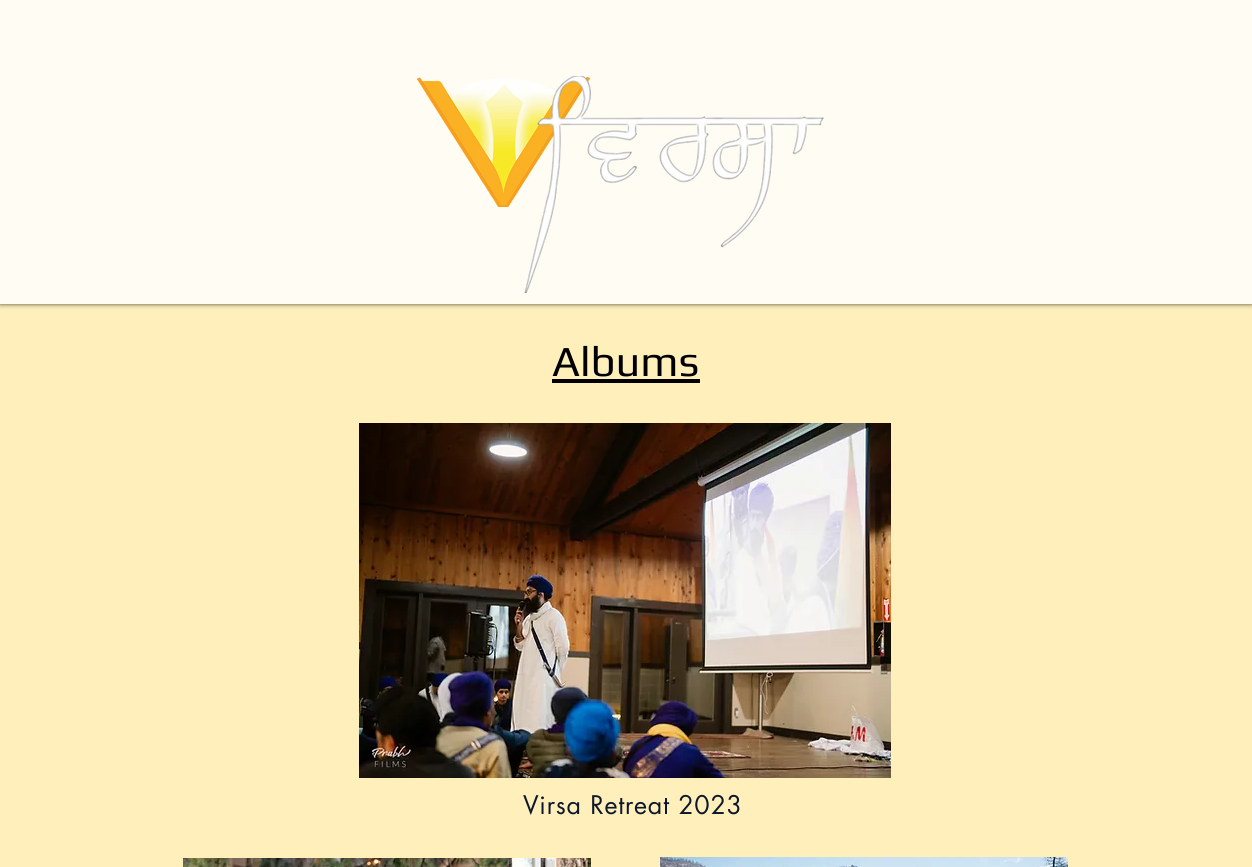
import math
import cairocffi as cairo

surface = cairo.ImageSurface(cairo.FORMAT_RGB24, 1252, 867)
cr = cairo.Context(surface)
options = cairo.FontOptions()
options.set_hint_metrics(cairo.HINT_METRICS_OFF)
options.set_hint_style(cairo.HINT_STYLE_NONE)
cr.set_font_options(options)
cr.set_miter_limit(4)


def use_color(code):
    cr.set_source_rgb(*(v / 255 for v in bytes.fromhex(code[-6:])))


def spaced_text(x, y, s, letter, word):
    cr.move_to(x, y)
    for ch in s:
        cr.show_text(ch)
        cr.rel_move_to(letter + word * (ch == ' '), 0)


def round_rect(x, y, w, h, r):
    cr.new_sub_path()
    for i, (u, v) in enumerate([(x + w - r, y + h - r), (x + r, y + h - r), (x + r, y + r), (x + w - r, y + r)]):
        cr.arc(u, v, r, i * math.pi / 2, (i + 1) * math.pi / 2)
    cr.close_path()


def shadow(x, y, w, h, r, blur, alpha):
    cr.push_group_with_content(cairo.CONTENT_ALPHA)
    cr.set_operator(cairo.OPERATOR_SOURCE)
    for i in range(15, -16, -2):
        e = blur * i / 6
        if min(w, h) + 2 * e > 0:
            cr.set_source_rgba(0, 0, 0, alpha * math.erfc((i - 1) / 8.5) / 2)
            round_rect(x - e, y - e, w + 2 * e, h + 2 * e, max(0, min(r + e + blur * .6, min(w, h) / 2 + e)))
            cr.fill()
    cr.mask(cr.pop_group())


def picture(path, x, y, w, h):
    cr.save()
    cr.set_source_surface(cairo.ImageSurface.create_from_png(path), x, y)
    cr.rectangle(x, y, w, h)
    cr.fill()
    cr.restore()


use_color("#ffefbb")
cr.paint()
use_color("#000000")
shadow(0, 0, 1252, 304, 0, 2.5, 0.7)
use_color("#fffdf3")
cr.rectangle(0, 0, 1252, 304)
cr.fill()
picture("img1.png", 417, 77, 173, 130)
picture("img2.png", 524, 76, 300, 217)
cr.select_font_face("Play")
cr.set_font_size(43)
use_color("#000000")
cr.move_to(552, 376)
cr.show_text("Albums")
cr.rectangle(552, 379, 148, 4)
cr.fill()
picture("img3.png", 359, 423, 532, 355)
cr.select_font_face("futura")
cr.set_font_size(25)
use_color("#0e182d")
spaced_text(523, 814, "Virsa Retreat 2023", 0.75, 0)
picture("img4.png", 183, 858, 408, 9)
picture("img5.png", 660, 857, 408, 10)
surface.write_to_png("result.png")
